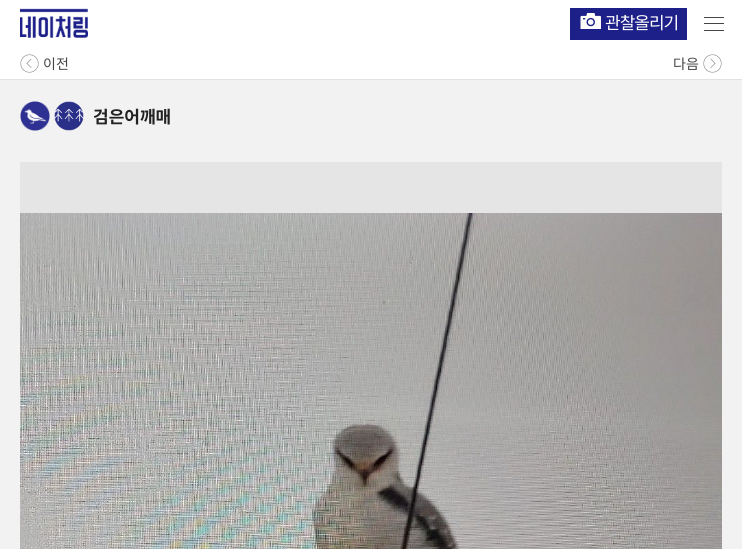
import math
import cairocffi as cairo

surface = cairo.ImageSurface(cairo.FORMAT_RGB24, 742, 549)
cr = cairo.Context(surface)
options = cairo.FontOptions()
options.set_hint_metrics(cairo.HINT_METRICS_OFF)
options.set_hint_style(cairo.HINT_STYLE_NONE)
cr.set_font_options(options)
cr.set_miter_limit(4)


def use_color(code):
    cr.set_source_rgb(*(v / 255 for v in bytes.fromhex(code[-6:])))


def spaced_text(x, y, s, letter, word):
    cr.move_to(x, y)
    for ch in s:
        cr.show_text(ch)
        cr.rel_move_to(letter + word * (ch == ' '), 0)


def picture(path, x, y, w, h):
    cr.save()
    cr.set_source_surface(cairo.ImageSurface.create_from_png(path), x, y)
    cr.rectangle(x, y, w, h)
    cr.fill()
    cr.restore()


use_color("#f2f2f2")
cr.paint()
use_color("#ffffff")
cr.rectangle(0, 0, 742, 79)
cr.fill()
picture("img1.png", 20, 8, 68, 30)
use_color("#1d2088")
cr.rectangle(570, 8, 117, 32)
cr.fill()
picture("img2.png", 580, 13, 21, 16)
cr.select_font_face("Noto Sans KR")
cr.set_font_size(17)
use_color("#ffffff")
spaced_text(605, 29, "관찰올리기", -1, 0)
use_color("#454545")
cr.rectangle(704, 17, 20, 1)
cr.fill()
cr.rectangle(704, 23, 20, 1)
cr.fill()
cr.rectangle(704, 30, 20, 1)
cr.fill()
use_color("#e2e2e2")
cr.rectangle(0, 79, 742, 1)
cr.fill()
picture("img3.png", 20, 54, 19, 19)
cr.set_font_size(14)
use_color("#454545")
cr.move_to(43, 69)
cr.show_text("이전")
cr.move_to(673, 69)
cr.show_text("다음")
picture("img4.png", 703, 54, 19, 19)
picture("img5.png", 20, 101, 30, 30)
picture("img6.png", 54, 101, 30, 30)
cr.select_font_face("Noto Sans KR", cairo.FONT_SLANT_NORMAL, cairo.FONT_WEIGHT_BOLD)
cr.set_font_size(17)
use_color("#222222")
cr.move_to(93, 123)
cr.show_text("검은어깨매")
use_color("#e5e5e5")
cr.rectangle(20, 162, 702, 51)
cr.fill()
picture("img7.png", 20, 213, 702, 336)
surface.write_to_png("result.png")
